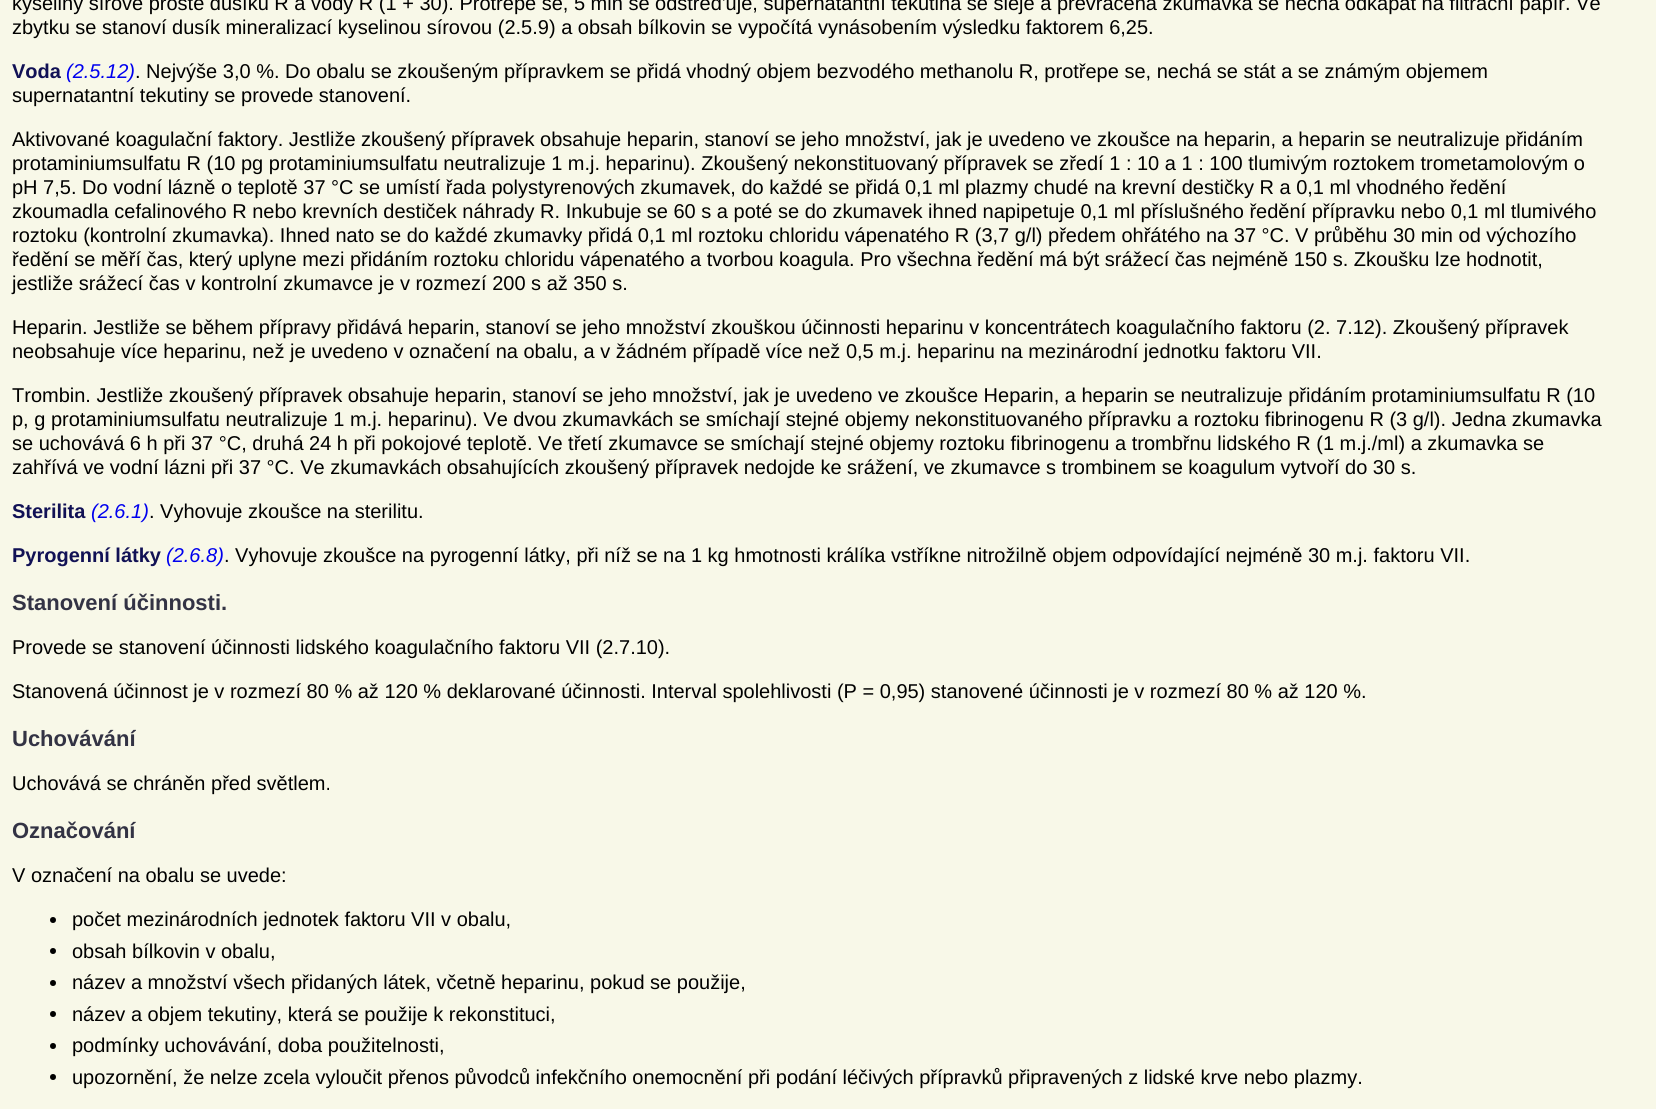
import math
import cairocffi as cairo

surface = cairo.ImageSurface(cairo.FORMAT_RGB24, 1656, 1109)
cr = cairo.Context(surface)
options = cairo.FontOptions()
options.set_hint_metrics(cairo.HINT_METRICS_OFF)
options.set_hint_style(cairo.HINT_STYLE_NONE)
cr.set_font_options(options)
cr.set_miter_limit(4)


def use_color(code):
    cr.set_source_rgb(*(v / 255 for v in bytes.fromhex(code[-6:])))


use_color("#f8f8e8")
cr.paint()
cr.select_font_face("Liberation Sans")
cr.set_font_size(20)
use_color("#000000")
cr.move_to(12, 10)
cr.show_text("kyseliny sírové prosté dusíku R a vody R (1 + 30). Protřepe se, 5 min se odstřed'uje, supernatantní tekutina se sleje a převrácená zkumavka se nechá odkapat na filtrační papír. Ve")
cr.move_to(12, 34)
cr.show_text("zbytku se stanoví dusík mineralizací kyselinou sírovou (2.5.9) a obsah bílkovin se vypočítá vynásobením výsledku faktorem 6,25.")
cr.select_font_face("Liberation Sans", cairo.FONT_SLANT_NORMAL, cairo.FONT_WEIGHT_BOLD)
use_color("#111155")
cr.move_to(12, 78)
cr.show_text("Voda")
cr.select_font_face("Liberation Sans", cairo.FONT_SLANT_ITALIC)
use_color("#0000ee")
cr.move_to(66, 78)
cr.show_text("(2.5.12)")
cr.select_font_face("Liberation Sans")
use_color("#000000")
cr.move_to(135, 78)
cr.show_text(". Nejvýše 3,0 %. Do obalu se zkoušeným přípravkem se přidá vhodný objem bezvodého methanolu R, protřepe se, nechá se stát a se známým objemem")
cr.move_to(12, 102)
cr.show_text("supernatantní tekutiny se provede stanovení.")
cr.move_to(12, 146)
cr.show_text("Aktivované koagulační faktory. Jestliže zkoušený přípravek obsahuje heparin, stanoví se jeho množství, jak je uvedeno ve zkoušce na heparin, a heparin se neutralizuje přidáním")
cr.move_to(12, 170)
cr.show_text("protaminiumsulfatu R (10 pg protaminiumsulfatu neutralizuje 1 m.j. heparinu). Zkoušený nekonstituovaný přípravek se zředí 1 : 10 a 1 : 100 tlumivým roztokem trometamolovým o")
cr.move_to(12, 194)
cr.show_text("pH 7,5. Do vodní lázně o teplotě 37 °C se umístí řada polystyrenových zkumavek, do každé se přidá 0,1 ml plazmy chudé na krevní destičky R a 0,1 ml vhodného ředění")
cr.move_to(12, 218)
cr.show_text("zkoumadla cefalinového R nebo krevních destiček náhrady R. Inkubuje se 60 s a poté se do zkumavek ihned napipetuje 0,1 ml příslušného ředění přípravku nebo 0,1 ml tlumivého")
cr.move_to(12, 242)
cr.show_text("roztoku (kontrolní zkumavka). Ihned nato se do každé zkumavky přidá 0,1 ml roztoku chloridu vápenatého R (3,7 g/l) předem ohřátého na 37 °C. V průběhu 30 min od výchozího")
cr.move_to(12, 266)
cr.show_text("ředění se měří čas, který uplyne mezi přidáním roztoku chloridu vápenatého a tvorbou koagula. Pro všechna ředění má být srážecí čas nejméně 150 s. Zkoušku lze hodnotit,")
cr.move_to(12, 290)
cr.show_text("jestliže srážecí čas v kontrolní zkumavce je v rozmezí 200 s až 350 s.")
cr.move_to(12, 334)
cr.show_text("Heparin. Jestliže se během přípravy přidává heparin, stanoví se jeho množství zkouškou účinnosti heparinu v koncentrátech koagulačního faktoru (2. 7.12). Zkoušený přípravek")
cr.move_to(12, 358)
cr.show_text("neobsahuje více heparinu, než je uvedeno v označení na obalu, a v žádném případě více než 0,5 m.j. heparinu na mezinárodní jednotku faktoru VII.")
cr.move_to(12, 402)
cr.show_text("Trombin. Jestliže zkoušený přípravek obsahuje heparin, stanoví se jeho množství, jak je uvedeno ve zkoušce Heparin, a heparin se neutralizuje přidáním protaminiumsulfatu R (10")
cr.move_to(12, 426)
cr.show_text("p, g protaminiumsulfatu neutralizuje 1 m.j. heparinu). Ve dvou zkumavkách se smíchají stejné objemy nekonstituovaného přípravku a roztoku fibrinogenu R (3 g/l). Jedna zkumavka")
cr.move_to(12, 450)
cr.show_text("se uchovává 6 h při 37 °C, druhá 24 h při pokojové teplotě. Ve třetí zkumavce se smíchají stejné objemy roztoku fibrinogenu a trombřnu lidského R (1 m.j./ml) a zkumavka se")
cr.move_to(12, 474)
cr.show_text("zahřívá ve vodní lázni při 37 °C. Ve zkumavkách obsahujících zkoušený přípravek nedojde ke srážení, ve zkumavce s trombinem se koagulum vytvoří do 30 s.")
cr.select_font_face("Liberation Sans", cairo.FONT_SLANT_NORMAL, cairo.FONT_WEIGHT_BOLD)
use_color("#111155")
cr.move_to(12, 518)
cr.show_text("Sterilita")
cr.select_font_face("Liberation Sans", cairo.FONT_SLANT_ITALIC)
use_color("#0000ee")
cr.move_to(91, 518)
cr.show_text("(2.6.1)")
cr.select_font_face("Liberation Sans")
use_color("#000000")
cr.move_to(149, 518)
cr.show_text(". Vyhovuje zkoušce na sterilitu.")
cr.select_font_face("Liberation Sans", cairo.FONT_SLANT_NORMAL, cairo.FONT_WEIGHT_BOLD)
use_color("#111155")
cr.move_to(12, 562)
cr.show_text("Pyrogenní látky")
cr.select_font_face("Liberation Sans", cairo.FONT_SLANT_ITALIC)
use_color("#0000ee")
cr.move_to(166, 562)
cr.show_text("(2.6.8)")
cr.select_font_face("Liberation Sans")
use_color("#000000")
cr.move_to(224, 562)
cr.show_text(". Vyhovuje zkoušce na pyrogenní látky, při níž se na 1 kg hmotnosti králíka vstříkne nitrožilně objem odpovídající nejméně 30 m.j. faktoru VII.")
cr.select_font_face("Liberation Sans", cairo.FONT_SLANT_NORMAL, cairo.FONT_WEIGHT_BOLD)
cr.set_font_size(22)
use_color("#333344")
cr.move_to(12, 610)
cr.show_text("Stanovení účinnosti.")
cr.select_font_face("Liberation Sans")
cr.set_font_size(20)
use_color("#000000")
cr.move_to(12, 654)
cr.show_text("Provede se stanovení účinnosti lidského koagulačního faktoru VII (2.7.10).")
cr.move_to(12, 698)
cr.show_text("Stanovená účinnost je v rozmezí 80 % až 120 % deklarované účinnosti. Interval spolehlivosti (P = 0,95) stanovené účinnosti je v rozmezí 80 % až 120 %.")
cr.select_font_face("Liberation Sans", cairo.FONT_SLANT_NORMAL, cairo.FONT_WEIGHT_BOLD)
cr.set_font_size(22)
use_color("#333344")
cr.move_to(12, 746)
cr.show_text("Uchovávání")
cr.select_font_face("Liberation Sans")
cr.set_font_size(20)
use_color("#000000")
cr.move_to(12, 790)
cr.show_text("Uchovává se chráněn před světlem.")
cr.select_font_face("Liberation Sans", cairo.FONT_SLANT_NORMAL, cairo.FONT_WEIGHT_BOLD)
cr.set_font_size(22)
use_color("#333344")
cr.move_to(12, 838)
cr.show_text("Označování")
cr.select_font_face("Liberation Sans")
cr.set_font_size(20)
use_color("#000000")
cr.move_to(12, 882)
cr.show_text("V označení na obalu se uvede:")
cr.new_path()
cr.arc(53, 920, 3, 0, 2 * math.pi)
cr.fill()
cr.move_to(72, 926)
cr.show_text("počet mezinárodních jednotek faktoru VII v obalu,")
cr.new_path()
cr.arc(53, 951, 3, 0, 2 * math.pi)
cr.fill()
cr.move_to(72, 958)
cr.show_text("obsah bílkovin v obalu,")
cr.new_path()
cr.arc(53, 983, 3, 0, 2 * math.pi)
cr.fill()
cr.move_to(72, 989)
cr.show_text("název a množství všech přidaných látek, včetně heparinu, pokud se použije,")
cr.new_path()
cr.arc(53, 1014, 3, 0, 2 * math.pi)
cr.fill()
cr.move_to(72, 1021)
cr.show_text("název a objem tekutiny, která se použije k rekonstituci,")
cr.new_path()
cr.arc(53, 1046, 3, 0, 2 * math.pi)
cr.fill()
cr.move_to(72, 1052)
cr.show_text("podmínky uchovávání, doba použitelnosti,")
cr.new_path()
cr.arc(53, 1077, 3, 0, 2 * math.pi)
cr.fill()
cr.move_to(72, 1084)
cr.show_text("upozornění, že nelze zcela vyloučit přenos původců infekčního onemocnění při podání léčivých přípravků připravených z lidské krve nebo plazmy.")
surface.write_to_png("result.png")
